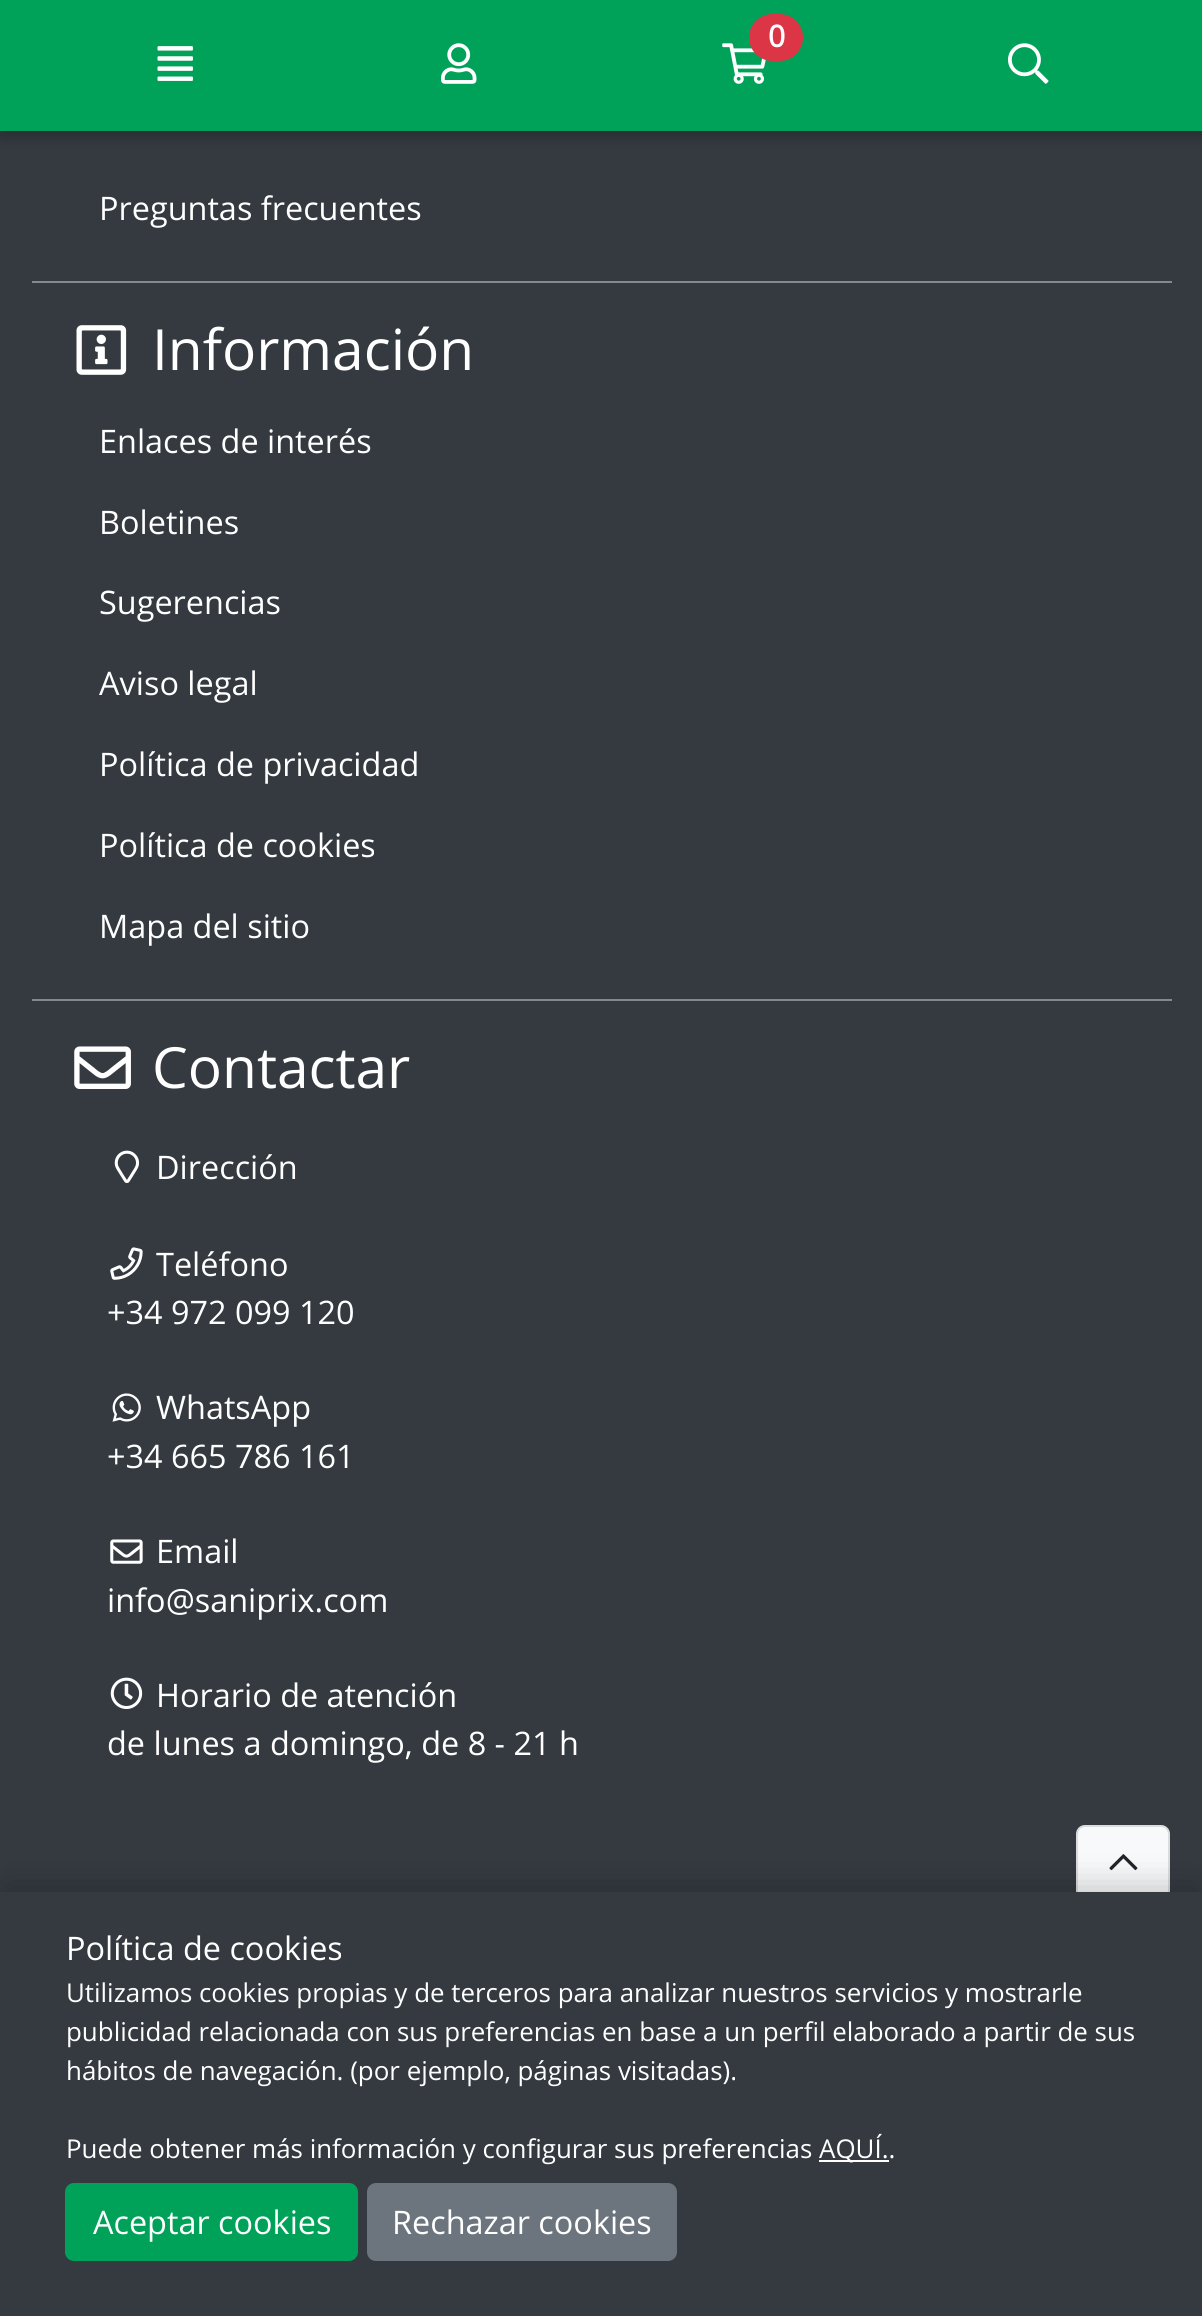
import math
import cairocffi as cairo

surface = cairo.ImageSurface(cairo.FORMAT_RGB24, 1202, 2316)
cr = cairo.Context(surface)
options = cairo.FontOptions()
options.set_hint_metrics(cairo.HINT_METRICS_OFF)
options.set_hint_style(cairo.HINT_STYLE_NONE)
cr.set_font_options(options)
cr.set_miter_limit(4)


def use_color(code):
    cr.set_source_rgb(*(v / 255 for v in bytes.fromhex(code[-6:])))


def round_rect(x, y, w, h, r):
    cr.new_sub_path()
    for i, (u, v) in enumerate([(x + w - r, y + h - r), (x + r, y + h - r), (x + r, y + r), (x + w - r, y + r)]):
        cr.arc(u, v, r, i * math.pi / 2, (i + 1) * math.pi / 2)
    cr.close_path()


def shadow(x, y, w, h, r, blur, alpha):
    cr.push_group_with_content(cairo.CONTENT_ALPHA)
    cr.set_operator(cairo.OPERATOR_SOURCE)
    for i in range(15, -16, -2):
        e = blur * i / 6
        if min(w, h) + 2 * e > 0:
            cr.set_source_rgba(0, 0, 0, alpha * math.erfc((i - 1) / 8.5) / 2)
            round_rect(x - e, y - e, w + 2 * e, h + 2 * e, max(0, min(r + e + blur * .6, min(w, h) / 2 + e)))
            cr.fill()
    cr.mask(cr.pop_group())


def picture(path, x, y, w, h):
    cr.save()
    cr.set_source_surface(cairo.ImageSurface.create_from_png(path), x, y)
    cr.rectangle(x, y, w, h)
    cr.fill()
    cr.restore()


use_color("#343a40")
cr.paint()
use_color("#000000")
shadow(0, 7, 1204, 130, 0, 7, 0.23)
use_color("#00a25a")
cr.rectangle(0, 0, 1202, 131)
cr.fill()
picture("img1.png", 722, 43, 44, 41)
use_color("#dc3545")
round_rect(749, 14, 54, 47, 23.5)
cr.fill()
cr.select_font_face("Open Sans", cairo.FONT_SLANT_NORMAL, cairo.FONT_WEIGHT_BOLD)
cr.set_font_size(30)
use_color("#ffffff")
cr.move_to(768, 47)
cr.show_text("0")
picture("img2.png", 157, 46, 36, 35)
picture("img3.png", 441, 43, 36, 41)
picture("img4.png", 1008, 43, 41, 41)
use_color("#85898c")
cr.rectangle(32, 281, 1140, 2)
cr.fill()
cr.select_font_face("Open Sans")
cr.set_font_size(32.4)
use_color("#ffffff")
cr.move_to(99, 220)
cr.show_text("Preguntas frecuentes")
use_color("#85898c")
cr.rectangle(32, 999, 1140, 2)
cr.fill()
picture("img5.png", 76, 325, 51, 50)
cr.set_font_size(56.75)
use_color("#ffffff")
cr.move_to(152, 370)
cr.show_text("Información")
cr.set_font_size(32.4)
cr.move_to(99, 453)
cr.show_text("Enlaces de interés")
cr.move_to(99, 534)
cr.show_text("Boletines")
cr.move_to(99, 614)
cr.show_text("Sugerencias")
cr.move_to(99, 695)
cr.show_text("Aviso legal")
cr.move_to(99, 776)
cr.show_text("Política de privacidad")
cr.move_to(99, 857)
cr.show_text("Política de cookies")
cr.move_to(99, 938)
cr.show_text("Mapa del sitio")
picture("img6.png", 74, 1046, 57, 43)
cr.set_font_size(56.75)
cr.move_to(152, 1088)
cr.show_text("Contactar")
picture("img7.png", 114, 1150, 26, 33)
cr.set_font_size(32.4)
cr.move_to(156, 1179)
cr.show_text("Dirección")
picture("img8.png", 110, 1247, 33, 33)
cr.move_to(156, 1276)
cr.show_text("Teléfono")
cr.move_to(107, 1324)
cr.show_text("+34 972 099 120")
picture("img9.png", 112, 1393, 29, 29)
cr.move_to(156, 1419)
cr.show_text("WhatsApp")
cr.move_to(107, 1468)
cr.show_text("+34 665 786 161")
picture("img10.png", 110, 1539, 33, 25)
cr.move_to(156, 1563)
cr.show_text("Email")
cr.move_to(107, 1612)
cr.show_text("info@saniprix.com")
picture("img11.png", 110, 1677, 33, 32)
cr.move_to(156, 1707)
cr.show_text("Horario de atención")
cr.move_to(107, 1755)
cr.show_text("de lunes a domingo, de 8 - 21 h")
use_color("#f8f9fa")
round_rect(1076, 1825, 94, 76, 9)
cr.fill()
round_rect(1077, 1826, 92, 74, 8)
cr.set_source_rgba(0, 0, 0, 0.12)
cr.stroke()
picture("img12.png", 1109, 1854, 29, 17)
use_color("#000000")
shadow(7, 1888, 1190, 412, 0, 17, 0.23)
use_color("#343a40")
cr.rectangle(0, 1892, 1202, 424)
cr.fill()
use_color("#ffffff")
cr.move_to(66, 1960)
cr.show_text("Política de cookies")
cr.set_font_size(25.9)
cr.move_to(66, 2002)
cr.show_text("Utilizamos cookies propias y de terceros para analizar nuestros servicios y mostrarle")
cr.move_to(66, 2041)
cr.show_text("publicidad relacionada con sus preferencias en base a un perfil elaborado a partir de sus")
cr.move_to(66, 2080)
cr.show_text("hábitos de navegación. (por ejemplo, páginas visitadas).")
cr.move_to(66, 2158)
cr.show_text("Puede obtener más información y configurar sus preferencias")
cr.rectangle(819, 2160, 70, 2)
cr.fill()
cr.move_to(819, 2158)
cr.show_text("AQUÍ..")
use_color("#00a25a")
round_rect(66, 2184, 291, 76, 8)
cr.fill_preserve()
cr.stroke()
cr.set_font_size(32.4)
use_color("#ffffff")
cr.move_to(93, 2234)
cr.show_text("Aceptar cookies")
use_color("#6c757d")
round_rect(368, 2184, 308, 76, 8)
cr.fill_preserve()
cr.stroke()
use_color("#ffffff")
cr.move_to(392, 2234)
cr.show_text("Rechazar cookies")
surface.write_to_png("result.png")
